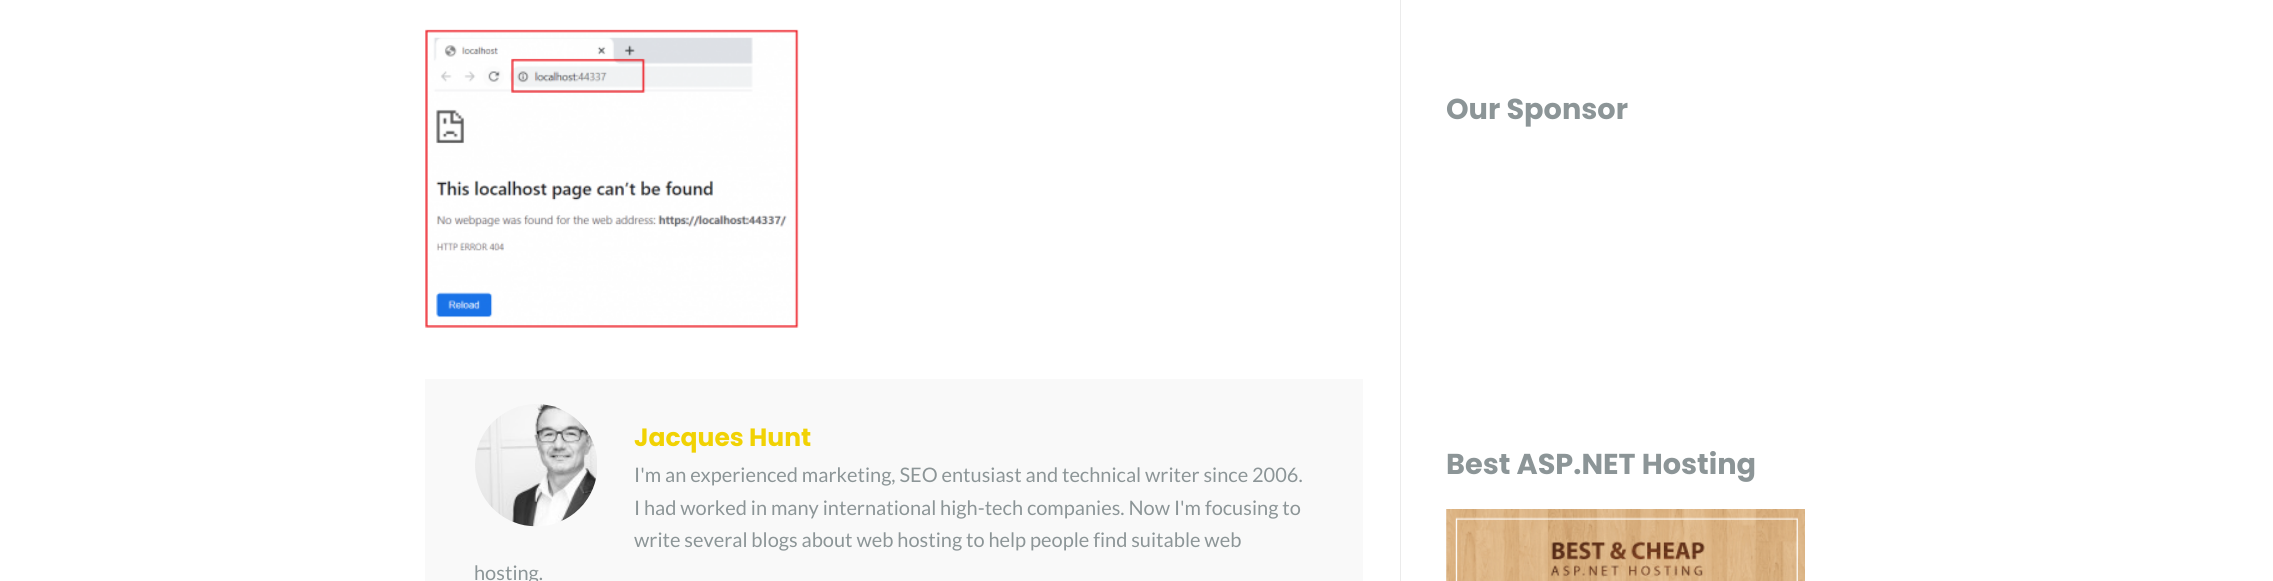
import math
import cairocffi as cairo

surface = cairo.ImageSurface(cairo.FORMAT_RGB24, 2273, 581)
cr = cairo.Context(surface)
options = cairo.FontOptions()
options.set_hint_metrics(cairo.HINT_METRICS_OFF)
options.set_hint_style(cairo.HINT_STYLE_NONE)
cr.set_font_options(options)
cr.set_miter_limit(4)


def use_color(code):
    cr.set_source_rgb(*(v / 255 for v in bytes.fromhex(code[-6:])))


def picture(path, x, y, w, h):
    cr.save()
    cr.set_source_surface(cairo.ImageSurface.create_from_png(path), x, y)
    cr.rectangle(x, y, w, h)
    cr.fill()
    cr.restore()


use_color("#ffffff")
cr.paint()
use_color("#ebebeb")
cr.rectangle(1400, 0, 1, 581)
cr.fill()
cr.select_font_face("Poppins", cairo.FONT_SLANT_NORMAL, cairo.FONT_WEIGHT_BOLD)
cr.set_font_size(28.75)
use_color("#8c9597")
cr.move_to(1446, 119)
cr.show_text("Our Sponsor")
cr.move_to(1446, 474)
cr.show_text("Best ASP.NET Hosting")
picture("img1.png", 1446, 509, 359, 72)
picture("img2.png", 425, 29, 374, 299)
use_color("#f9f9f9")
cr.rectangle(425, 379, 938, 202)
cr.fill()
picture("img3.png", 475, 404, 122, 123)
cr.set_font_size(25)
use_color("#f1d204")
cr.move_to(634, 446)
cr.show_text("Jacques Hunt")
cr.select_font_face("Lato")
cr.set_font_size(20)
use_color("#8c9597")
cr.move_to(634, 482)
cr.show_text("I'm an experienced marketing, SEO entusiast and technical writer since 2006.")
cr.move_to(634, 515)
cr.show_text("I had worked in many international high-tech companies. Now I'm focusing to")
cr.move_to(634, 547)
cr.show_text("write several blogs about web hosting to help people find suitable web")
cr.move_to(474, 580)
cr.show_text("hosting.")
surface.write_to_png("result.png")
